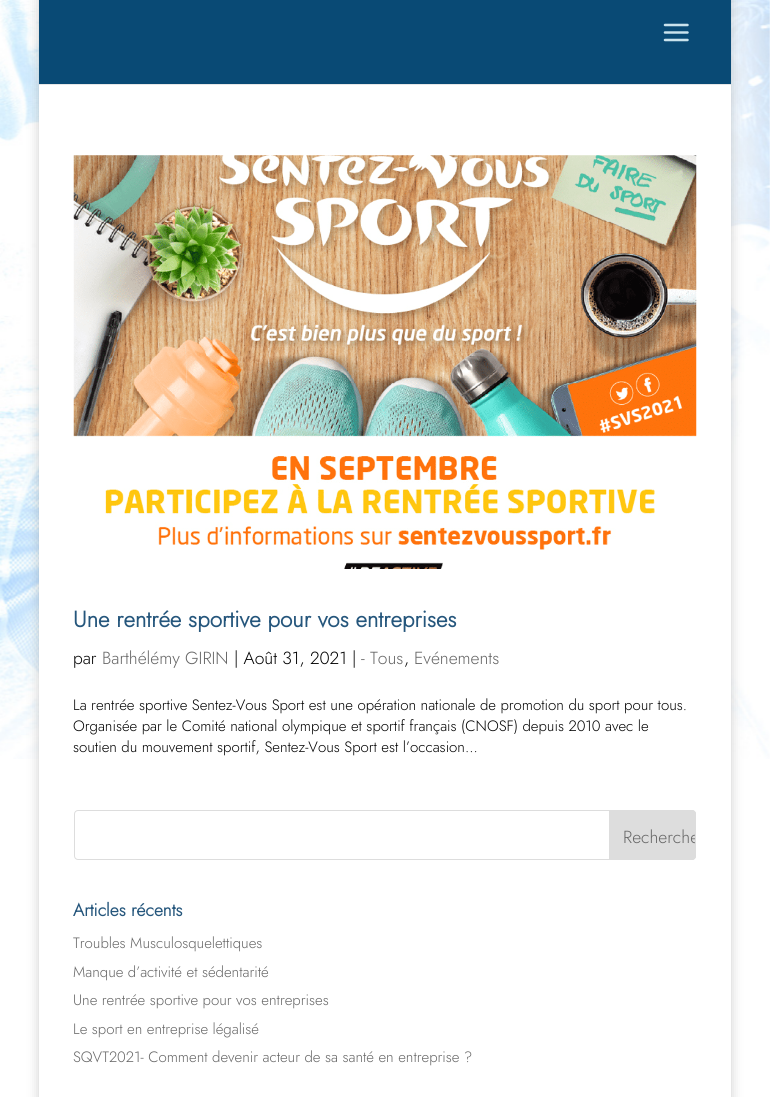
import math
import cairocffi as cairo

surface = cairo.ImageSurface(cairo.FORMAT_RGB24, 770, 1097)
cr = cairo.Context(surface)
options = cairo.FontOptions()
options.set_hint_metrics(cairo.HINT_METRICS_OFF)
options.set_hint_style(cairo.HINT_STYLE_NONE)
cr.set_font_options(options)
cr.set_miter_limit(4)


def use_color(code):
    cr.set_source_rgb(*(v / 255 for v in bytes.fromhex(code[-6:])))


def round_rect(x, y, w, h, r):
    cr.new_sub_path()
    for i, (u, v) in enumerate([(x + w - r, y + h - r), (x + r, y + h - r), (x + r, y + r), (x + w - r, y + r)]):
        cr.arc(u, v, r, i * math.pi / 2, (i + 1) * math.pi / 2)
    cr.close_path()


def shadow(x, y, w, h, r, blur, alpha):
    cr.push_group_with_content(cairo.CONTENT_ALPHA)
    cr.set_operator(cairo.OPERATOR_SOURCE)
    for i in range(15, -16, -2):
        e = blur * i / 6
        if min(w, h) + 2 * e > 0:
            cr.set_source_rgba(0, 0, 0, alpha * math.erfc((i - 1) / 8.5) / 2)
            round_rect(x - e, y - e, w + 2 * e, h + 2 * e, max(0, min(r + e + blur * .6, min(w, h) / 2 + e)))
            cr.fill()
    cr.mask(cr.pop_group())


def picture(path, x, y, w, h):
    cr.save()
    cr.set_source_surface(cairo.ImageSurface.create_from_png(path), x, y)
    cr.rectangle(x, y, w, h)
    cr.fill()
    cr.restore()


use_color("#ffffff")
cr.paint()
picture("img1.png", 0, 0, 770, 759)
use_color("#000000")
shadow(39, -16, 692, 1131, 0, 6, 0.2)
use_color("#e6e6e6")
cr.rectangle(39, 84, 692, 1)
cr.fill()
use_color("#094a75")
cr.rectangle(39, 0, 692, 84)
cr.fill()
picture("img2.png", 663, 23, 26, 19)
use_color("#ffffff")
cr.rectangle(39, 85, 692, 1012)
cr.fill()
picture("img3.png", 73, 155, 624, 414)
cr.select_font_face("Jost", cairo.FONT_SLANT_NORMAL, cairo.FONT_WEIGHT_BOLD)
cr.set_font_size(22.5)
use_color("#25567c")
cr.move_to(73, 627)
cr.show_text("Une rentrée sportive pour vos entreprises")
cr.select_font_face("Jost Light")
cr.set_font_size(17.5)
use_color("#000000")
cr.move_to(73, 664)
cr.show_text("par")
use_color("#666666")
cr.move_to(102, 664)
cr.show_text("Barthélémy GIRIN")
use_color("#000000")
cr.move_to(234, 664)
cr.show_text("| Août 31, 2021 |")
use_color("#666666")
cr.move_to(361, 664)
cr.show_text("- Tous")
use_color("#000000")
cr.move_to(404, 664)
cr.show_text(",")
use_color("#666666")
cr.move_to(414, 664)
cr.show_text("Evénements")
cr.set_font_size(15)
use_color("#000000")
cr.move_to(73, 710)
cr.show_text("La rentrée sportive Sentez-Vous Sport est une opération nationale de promotion du sport pour tous.")
cr.move_to(73, 731)
cr.show_text("Organisée par le Comité national olympique et sportif français (CNOSF) depuis 2010 avec le")
cr.move_to(73, 752)
cr.show_text("soutien du mouvement sportif, Sentez-Vous Sport est l’occasion...")
round_rect(74.5, 810.5, 621, 49, 3.5)
use_color("#dddddd")
cr.set_line_width(1)
cr.stroke()
cr.new_path()
cr.move_to(609.5, 810.5)
cr.line_to(692, 810.5)
cr.curve_to(694, 810.5, 695.5, 812, 695.5, 814)
cr.line_to(695.5, 856)
cr.curve_to(695.5, 858, 694, 859.5, 692, 859.5)
cr.line_to(609.5, 859.5)
cr.close_path()
cr.fill_preserve()
cr.stroke()
cr.save()
cr.new_path()
cr.move_to(610, 811)
cr.line_to(692.5, 811)
cr.curve_to(694, 811, 695, 812, 695, 813.5)
cr.line_to(695, 856.5)
cr.curve_to(695, 858, 694, 859, 692.5, 859)
cr.line_to(610, 859)
cr.close_path()
cr.clip()
cr.set_font_size(17.5)
use_color("#666666")
cr.move_to(623, 843)
cr.show_text("Recherche")
cr.restore()
cr.select_font_face("Jost", cairo.FONT_SLANT_NORMAL, cairo.FONT_WEIGHT_BOLD)
cr.set_font_size(17.5)
use_color("#25567c")
cr.move_to(73, 916)
cr.show_text("Articles récents")
cr.select_font_face("Jost Light")
cr.set_font_size(15)
use_color("#666666")
cr.move_to(73, 948)
cr.show_text("Troubles Musculosquelettiques")
cr.move_to(73, 977)
cr.show_text("Manque d’activité et sédentarité")
cr.move_to(73, 1005)
cr.show_text("Une rentrée sportive pour vos entreprises")
cr.move_to(73, 1034)
cr.show_text("Le sport en entreprise légalisé")
cr.move_to(73, 1062)
cr.show_text("SQVT2021- Comment devenir acteur de sa santé en entreprise ?")
surface.write_to_png("result.png")
